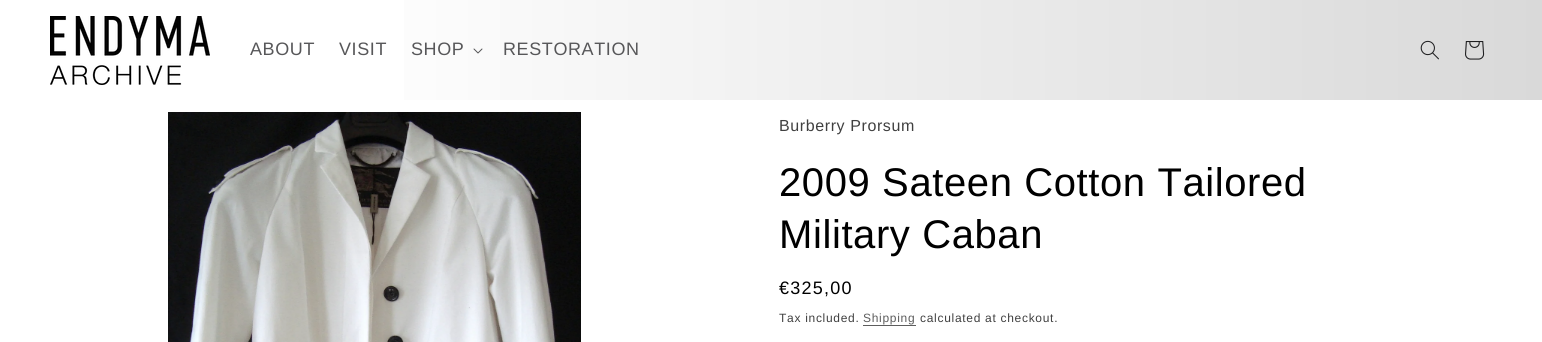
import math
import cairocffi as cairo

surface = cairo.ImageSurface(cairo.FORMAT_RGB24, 1542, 342)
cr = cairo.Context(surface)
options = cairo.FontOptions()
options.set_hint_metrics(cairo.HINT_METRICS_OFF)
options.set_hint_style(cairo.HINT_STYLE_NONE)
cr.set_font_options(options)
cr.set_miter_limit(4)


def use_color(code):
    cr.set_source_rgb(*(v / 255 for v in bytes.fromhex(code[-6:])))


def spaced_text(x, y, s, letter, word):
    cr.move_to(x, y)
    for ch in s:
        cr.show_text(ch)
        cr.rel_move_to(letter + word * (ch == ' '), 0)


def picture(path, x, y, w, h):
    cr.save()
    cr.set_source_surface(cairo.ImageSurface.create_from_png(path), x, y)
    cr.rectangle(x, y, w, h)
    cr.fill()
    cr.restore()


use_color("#ffffff")
cr.paint()
gradient = cairo.LinearGradient(0, 171, 1542, 171)
gradient.add_color_stop_rgba(0, 1, 1, 1, 1)
gradient.add_color_stop_rgba(0.21, 1, 1, 1, 1)
gradient.add_color_stop_rgba(1, 0.851, 0.851, 0.851, 1)
cr.set_source(gradient)
cr.rectangle(404, 0, 1138, 100)
cr.fill()
picture("img1.png", 50, 16, 160, 69)
cr.select_font_face("Liberation Sans")
cr.set_font_size(18)
use_color("#575759")
spaced_text(250, 55, "ABOUT", 0.6, 0)
spaced_text(339, 55, "VISIT", 0.6, 0)
spaced_text(411, 55, "SHOP", 0.6, 0)
picture("img2.png", 473, 48, 10, 6)
spaced_text(503, 55, "RESTORATION", 0.6, 0)
picture("img3.png", 1420, 40, 19, 20)
picture("img4.png", 1465, 41, 20, 19)
picture("img5.png", 168, 112, 413, 230)
cr.set_font_size(16)
use_color("#404040")
spaced_text(779, 131, "Burberry Prorsum", 0.6, 0)
cr.set_font_size(40)
use_color("#000000")
spaced_text(779, 196, "2009 Sateen Cotton Tailored", 0.6, 0)
spaced_text(779, 248, "Military Caban", 0.6, 0)
cr.set_font_size(18)
spaced_text(779, 294, "€325,00", 1.25, 0)
cr.set_font_size(12)
use_color("#404040")
spaced_text(779, 322, "Tax included.", 0.7, 0)
use_color("#5d5d5d")
spaced_text(863, 322, "Shipping", 0.7, 0)
cr.rectangle(863, 325, 53, 1)
cr.fill()
use_color("#404040")
spaced_text(920, 322, "calculated at checkout.", 0.7, 0)
surface.write_to_png("result.png")
